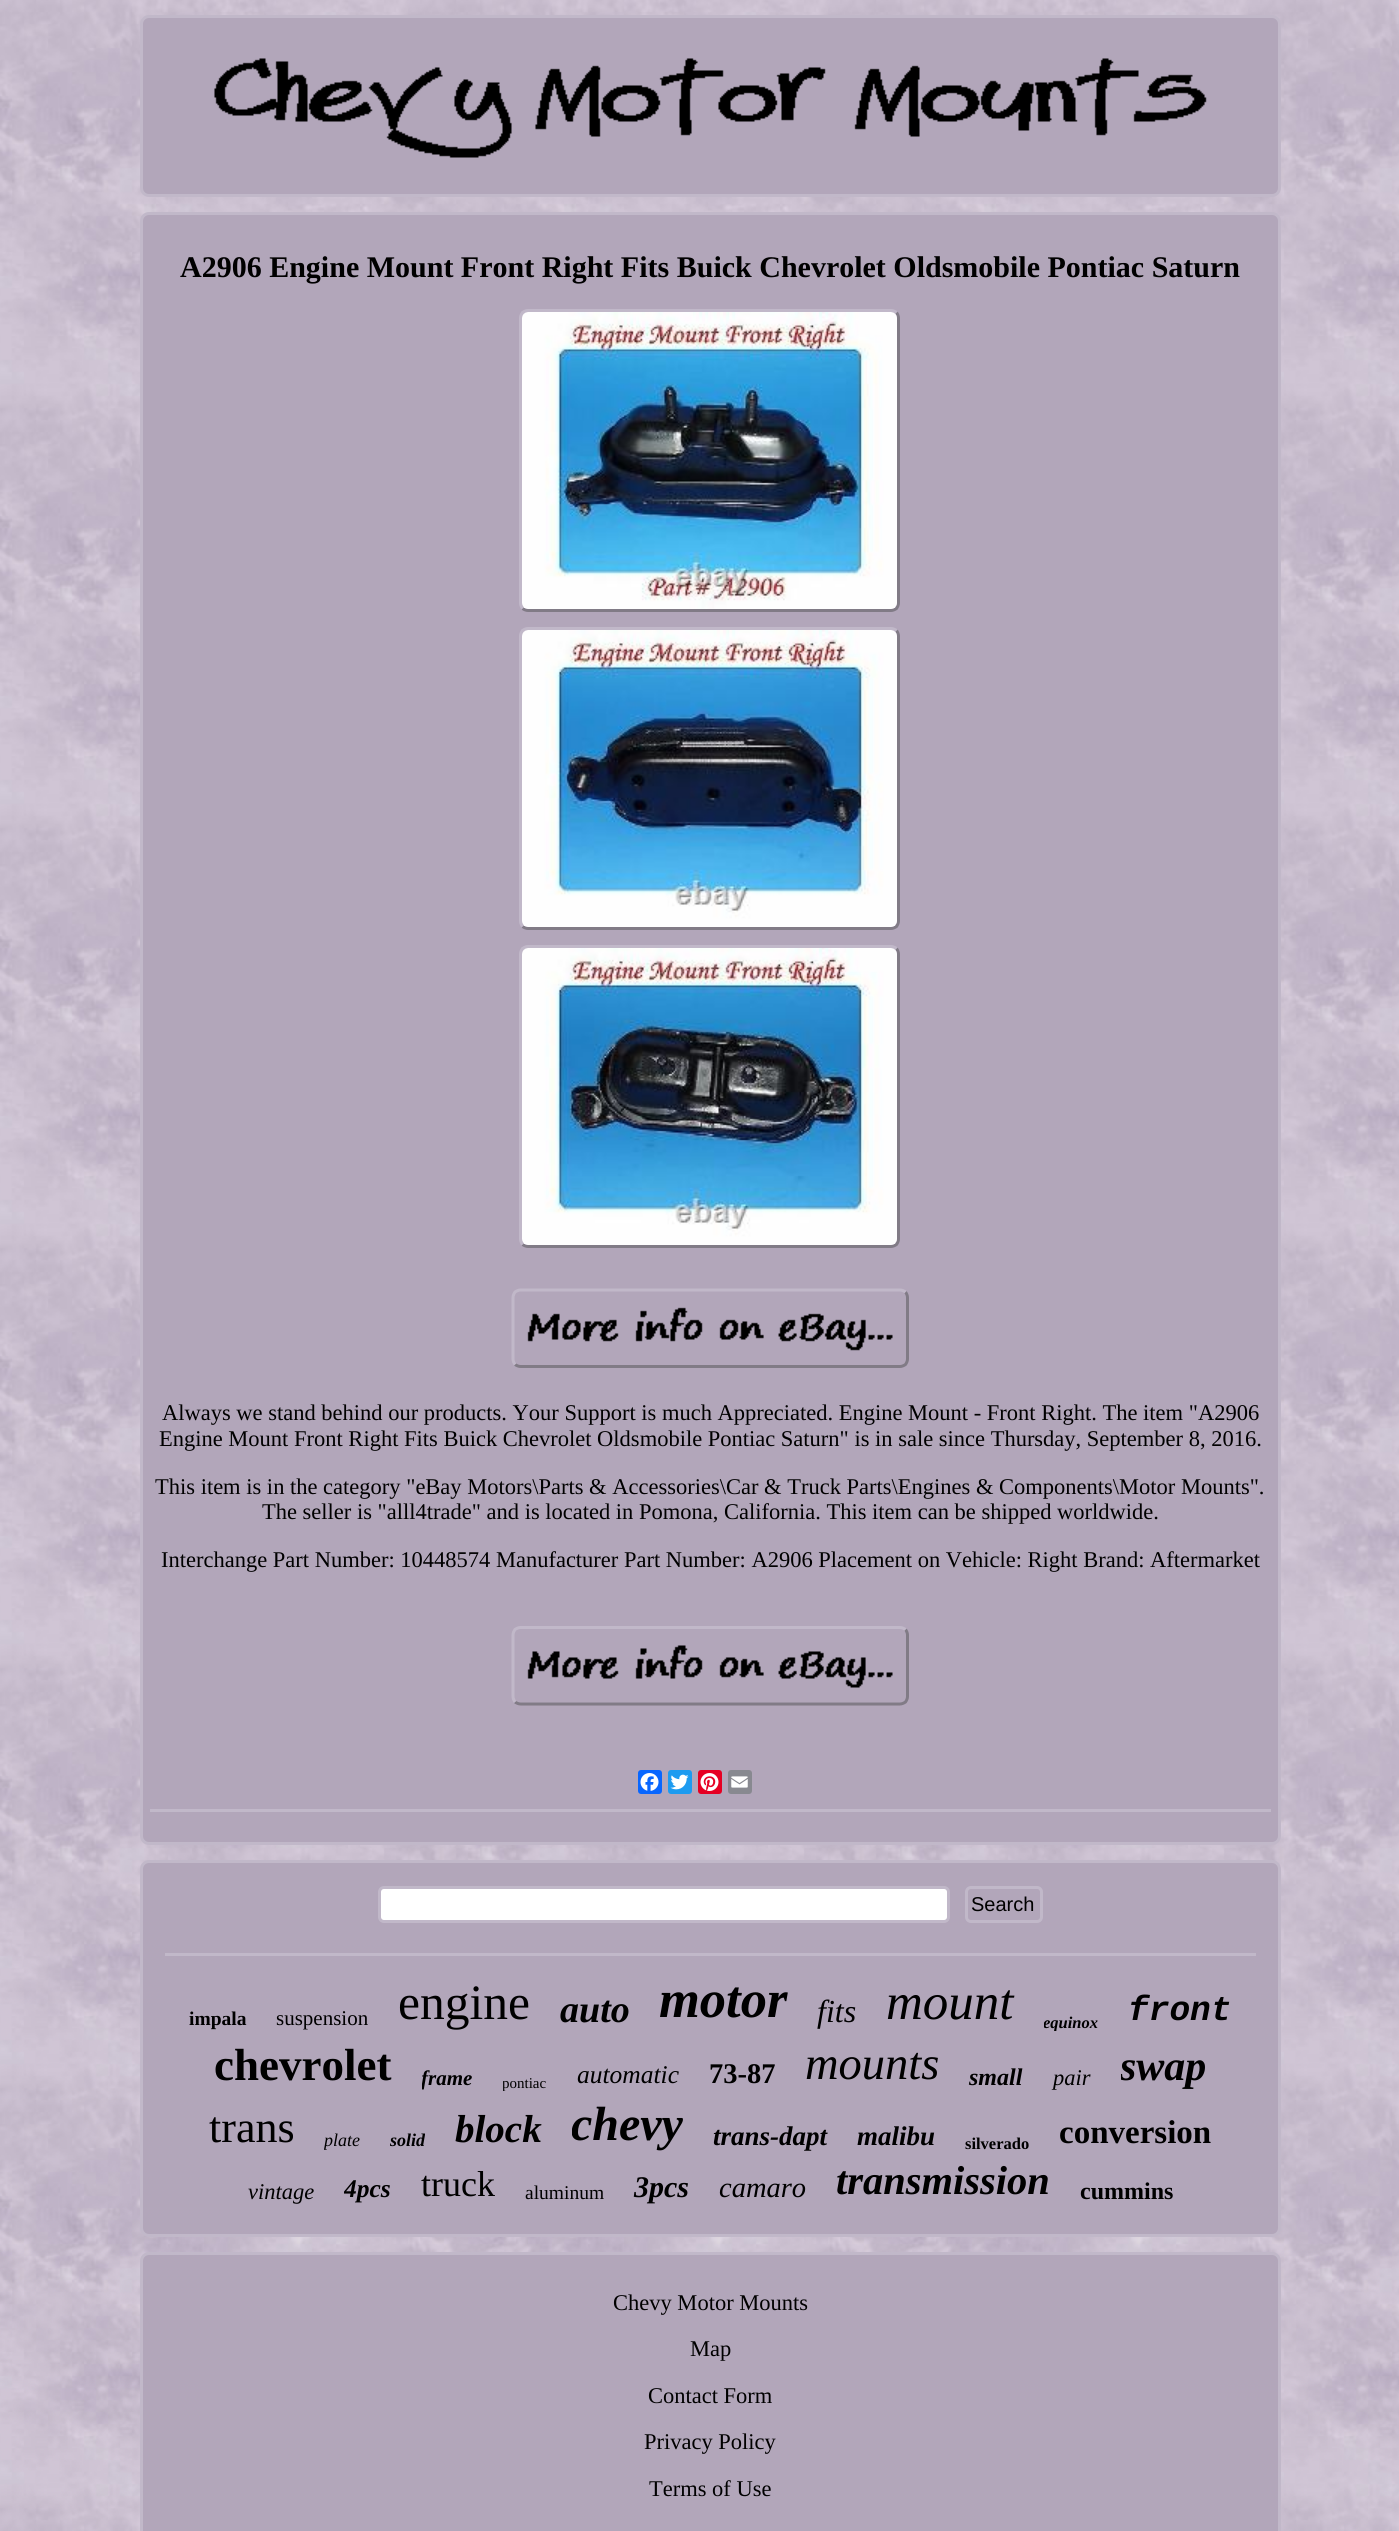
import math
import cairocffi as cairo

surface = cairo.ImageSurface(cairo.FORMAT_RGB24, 1399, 2531)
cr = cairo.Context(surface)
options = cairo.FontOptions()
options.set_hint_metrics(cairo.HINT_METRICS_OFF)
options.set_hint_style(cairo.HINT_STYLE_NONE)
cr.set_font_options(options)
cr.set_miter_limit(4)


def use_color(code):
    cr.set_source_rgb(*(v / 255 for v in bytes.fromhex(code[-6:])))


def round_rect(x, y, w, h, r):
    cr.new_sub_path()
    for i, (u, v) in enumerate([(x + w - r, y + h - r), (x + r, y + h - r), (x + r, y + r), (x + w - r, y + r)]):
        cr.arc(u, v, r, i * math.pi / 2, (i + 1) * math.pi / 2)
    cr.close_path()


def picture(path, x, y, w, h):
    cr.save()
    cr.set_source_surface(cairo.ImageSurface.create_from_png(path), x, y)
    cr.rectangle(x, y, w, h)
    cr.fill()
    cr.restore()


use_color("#ffffff")
cr.paint()
picture("img1.png", 0, 0, 1399, 2531)
use_color("#b2a6ba")
round_rect(141.5, 16.5, 1138, 179, 7.5)
cr.fill_preserve()
use_color("#c1b8c9")
cr.set_line_width(3)
cr.stroke()
picture("img2.png", 214, 58, 993, 100)
use_color("#b2a6ba")
round_rect(141.5, 213.5, 1138, 1630, 7.5)
cr.fill_preserve()
use_color("#c1b8c9")
cr.stroke()
cr.select_font_face("Liberation Serif", cairo.FONT_SLANT_NORMAL, cairo.FONT_WEIGHT_BOLD)
cr.set_font_size(30)
use_color("#000000")
cr.move_to(180, 277)
cr.show_text("A2906 Engine Mount Front Right Fits Buick Chevrolet Oldsmobile Pontiac Saturn")
cr.new_path()
cr.move_to(896.5, 312.5)
cr.curve_to(897.5, 314, 898.5, 316, 898.5, 318)
cr.line_to(898.5, 603)
cr.curve_to(898.5, 605, 897.5, 607, 896.5, 608.5)
cr.curve_to(895, 609.5, 893, 610.5, 891, 610.5)
cr.line_to(528, 610.5)
cr.curve_to(526, 610.5, 524, 609.5, 522.5, 608.5)
use_color("#817b86")
cr.stroke()
cr.new_path()
cr.move_to(522.5, 608.5)
cr.curve_to(521.5, 607, 520.5, 605, 520.5, 603)
cr.line_to(520.5, 318)
cr.curve_to(520.5, 316, 521.5, 314, 522.5, 312.5)
cr.curve_to(524, 311.5, 526, 310.5, 528, 310.5)
cr.line_to(891, 310.5)
cr.curve_to(893, 310.5, 895, 311.5, 896.5, 312.5)
use_color("#c1b8c9")
cr.stroke()
picture("img3.png", 522, 312, 375, 297)
cr.new_path()
cr.move_to(896.5, 630.5)
cr.curve_to(897.5, 632, 898.5, 634, 898.5, 636)
cr.line_to(898.5, 921)
cr.curve_to(898.5, 923, 897.5, 925, 896.5, 926.5)
cr.curve_to(895, 927.5, 893, 928.5, 891, 928.5)
cr.line_to(528, 928.5)
cr.curve_to(526, 928.5, 524, 927.5, 522.5, 926.5)
use_color("#817b86")
cr.stroke()
cr.new_path()
cr.move_to(522.5, 926.5)
cr.curve_to(521.5, 925, 520.5, 923, 520.5, 921)
cr.line_to(520.5, 636)
cr.curve_to(520.5, 634, 521.5, 632, 522.5, 630.5)
cr.curve_to(524, 629.5, 526, 628.5, 528, 628.5)
cr.line_to(891, 628.5)
cr.curve_to(893, 628.5, 895, 629.5, 896.5, 630.5)
use_color("#c1b8c9")
cr.stroke()
picture("img4.png", 522, 630, 375, 297)
cr.new_path()
cr.move_to(896.5, 948.5)
cr.curve_to(897.5, 950, 898.5, 952, 898.5, 954)
cr.line_to(898.5, 1239)
cr.curve_to(898.5, 1241, 897.5, 1243, 896.5, 1244.5)
cr.curve_to(895, 1245.5, 893, 1246.5, 891, 1246.5)
cr.line_to(528, 1246.5)
cr.curve_to(526, 1246.5, 524, 1245.5, 522.5, 1244.5)
use_color("#817b86")
cr.stroke()
cr.new_path()
cr.move_to(522.5, 1244.5)
cr.curve_to(521.5, 1243, 520.5, 1241, 520.5, 1239)
cr.line_to(520.5, 954)
cr.curve_to(520.5, 952, 521.5, 950, 522.5, 948.5)
cr.curve_to(524, 947.5, 526, 946.5, 528, 946.5)
cr.line_to(891, 946.5)
cr.curve_to(893, 946.5, 895, 947.5, 896.5, 948.5)
use_color("#c1b8c9")
cr.stroke()
picture("img5.png", 522, 948, 375, 297)
cr.new_path()
cr.move_to(905.5, 1292)
cr.curve_to(906.5, 1293.5, 907.5, 1295.5, 907.5, 1297.5)
cr.line_to(907.5, 1359)
cr.curve_to(907.5, 1361, 906.5, 1363, 905.5, 1364.5)
cr.curve_to(904, 1365.5, 902, 1366.5, 900, 1366.5)
cr.line_to(520.5, 1366.5)
cr.curve_to(518.5, 1366.5, 516.5, 1365.5, 515, 1364.5)
use_color("#817b86")
cr.stroke()
cr.new_path()
cr.move_to(515, 1364.5)
cr.curve_to(514, 1363, 513, 1361, 513, 1359)
cr.line_to(513, 1297.5)
cr.curve_to(513, 1295.5, 514, 1293.5, 515, 1292)
cr.curve_to(516.5, 1291, 518.5, 1290, 520.5, 1290)
cr.line_to(900, 1290)
cr.curve_to(902, 1290, 904, 1291, 905.5, 1292)
use_color("#c1b8c9")
cr.stroke()
picture("img6.png", 527, 1307, 366, 44)
cr.select_font_face("Liberation Serif")
cr.set_font_size(22.5)
use_color("#000000")
cr.move_to(162, 1420)
cr.show_text("Always we stand behind our products. Your Support is much Appreciated. Engine Mount - Front Right. The item \"A2906")
cr.move_to(159, 1446)
cr.show_text("Engine Mount Front Right Fits Buick Chevrolet Oldsmobile Pontiac Saturn\" is in sale since Thursday, September 8, 2016.")
cr.move_to(155, 1494)
cr.show_text("This item is in the category \"eBay Motors\\Parts & Accessories\\Car & Truck Parts\\Engines & Components\\Motor Mounts\".")
cr.move_to(262, 1519)
cr.show_text("The seller is \"alll4trade\" and is located in Pomona, California. This item can be shipped worldwide.")
cr.move_to(161, 1567)
cr.show_text("Interchange Part Number: 10448574 Manufacturer Part Number: A2906 Placement on Vehicle: Right Brand: Aftermarket")
cr.new_path()
cr.move_to(905.5, 1629.5)
cr.curve_to(906.5, 1631, 907.5, 1633, 907.5, 1635)
cr.line_to(907.5, 1696.5)
cr.curve_to(907.5, 1698.5, 906.5, 1700.5, 905.5, 1702)
cr.curve_to(904, 1703, 902, 1704, 900, 1704)
cr.line_to(520.5, 1704)
cr.curve_to(518.5, 1704, 516.5, 1703, 515, 1702)
use_color("#817b86")
cr.stroke()
cr.new_path()
cr.move_to(515, 1702)
cr.curve_to(514, 1700.5, 513, 1698.5, 513, 1696.5)
cr.line_to(513, 1635)
cr.curve_to(513, 1633, 514, 1631, 515, 1629.5)
cr.curve_to(516.5, 1628.5, 518.5, 1627.5, 520.5, 1627.5)
cr.line_to(900, 1627.5)
cr.curve_to(902, 1627.5, 904, 1628.5, 905.5, 1629.5)
use_color("#c1b8c9")
cr.stroke()
picture("img7.png", 527, 1645, 366, 43)
use_color("#0866ff")
round_rect(638, 1770, 24, 24, 3)
cr.fill()
picture("img8.png", 640, 1773, 19, 18)
use_color("#1d9bf0")
round_rect(668, 1770, 24, 24, 3)
cr.fill()
picture("img9.png", 670, 1774, 19, 16)
use_color("#e60023")
round_rect(698, 1770, 24, 24, 3)
cr.fill()
picture("img10.png", 700, 1773, 19, 18)
use_color("#888990")
round_rect(728, 1770, 24, 24, 3)
cr.fill()
picture("img11.png", 731, 1776, 17, 12)
use_color("#c1b8c9")
cr.rectangle(150, 1809, 1121, 3)
cr.fill()
use_color("#b2a6ba")
round_rect(141.5, 1861.5, 1138, 374, 7.5)
cr.fill_preserve()
use_color("#c1b8c9")
cr.stroke()
use_color("#ffffff")
round_rect(379.5, 1887.5, 569, 34, 4.5)
cr.fill_preserve()
use_color("#c1b8c9")
cr.stroke()
round_rect(966.5, 1887.5, 75, 34, 4.5)
cr.stroke()
cr.select_font_face("Liberation Sans")
cr.set_font_size(20)
use_color("#000000")
cr.move_to(971, 1911)
cr.show_text("Search")
use_color("#c1b8c9")
cr.rectangle(165, 1953, 1091, 3)
cr.fill()
cr.select_font_face("Liberation Serif", cairo.FONT_SLANT_NORMAL, cairo.FONT_WEIGHT_BOLD)
cr.set_font_size(19.5)
use_color("#000000")
cr.move_to(189, 2025)
cr.show_text("impala")
cr.select_font_face("Liberation Serif")
cr.set_font_size(21)
cr.move_to(276, 2025)
cr.show_text("suspension")
cr.set_font_size(49.5)
cr.move_to(398, 2019)
cr.show_text("engine")
cr.select_font_face("Liberation Serif", cairo.FONT_SLANT_ITALIC, cairo.FONT_WEIGHT_BOLD)
cr.set_font_size(38)
cr.move_to(560, 2022)
cr.show_text("auto")
cr.set_font_size(52.5)
cr.move_to(659, 2017)
cr.show_text("motor")
cr.select_font_face("Liberation Serif", cairo.FONT_SLANT_ITALIC)
cr.set_font_size(32)
cr.move_to(817, 2022)
cr.show_text("fits")
cr.set_font_size(51)
cr.move_to(886, 2019)
cr.show_text("mount")
cr.save()
cr.rectangle(1044, 2013, 54, 18)
cr.clip()
cr.select_font_face("Liberation Serif", cairo.FONT_SLANT_ITALIC, cairo.FONT_WEIGHT_BOLD)
cr.set_font_size(16.5)
cr.move_to(1043, 2028)
cr.show_text("equinox")
cr.restore()
cr.select_font_face("Liberation Mono", cairo.FONT_SLANT_ITALIC, cairo.FONT_WEIGHT_BOLD)
cr.set_font_size(34.5)
cr.move_to(1128, 2020)
cr.show_text("front")
cr.select_font_face("Liberation Serif", cairo.FONT_SLANT_NORMAL, cairo.FONT_WEIGHT_BOLD)
cr.set_font_size(45)
cr.move_to(214, 2080)
cr.show_text("chevrolet")
cr.save()
cr.rectangle(422, 2067, 51, 24)
cr.clip()
cr.select_font_face("Liberation Serif", cairo.FONT_SLANT_ITALIC, cairo.FONT_WEIGHT_BOLD)
cr.set_font_size(21)
cr.move_to(421, 2085)
cr.show_text("frame")
cr.restore()
cr.save()
cr.rectangle(503, 2075, 43, 16)
cr.clip()
cr.select_font_face("Liberation Serif")
cr.set_font_size(15)
cr.move_to(502, 2088)
cr.show_text("pontiac")
cr.restore()
cr.select_font_face("Liberation Serif", cairo.FONT_SLANT_ITALIC)
cr.set_font_size(25.5)
cr.move_to(577, 2083)
cr.show_text("automatic")
cr.select_font_face("Liberation Serif", cairo.FONT_SLANT_NORMAL, cairo.FONT_WEIGHT_BOLD)
cr.set_font_size(28.5)
cr.move_to(709, 2083)
cr.show_text("73-87")
cr.select_font_face("Liberation Serif", cairo.FONT_SLANT_ITALIC)
cr.set_font_size(46.5)
cr.move_to(805, 2079)
cr.show_text("mounts")
cr.select_font_face("Liberation Serif", cairo.FONT_SLANT_ITALIC, cairo.FONT_WEIGHT_BOLD)
cr.set_font_size(24)
cr.move_to(969, 2085)
cr.show_text("small")
cr.select_font_face("Liberation Serif", cairo.FONT_SLANT_ITALIC)
cr.set_font_size(22.5)
cr.move_to(1053, 2085)
cr.show_text("pair")
cr.save()
cr.rectangle(1121, 2043, 85, 48)
cr.clip()
cr.select_font_face("Liberation Serif", cairo.FONT_SLANT_ITALIC, cairo.FONT_WEIGHT_BOLD)
cr.set_font_size(42)
cr.move_to(1120, 2080)
cr.show_text("swap")
cr.restore()
cr.select_font_face("Liberation Serif")
cr.set_font_size(44)
cr.move_to(209, 2142)
cr.show_text("trans")
cr.save()
cr.rectangle(324, 2130, 36, 23)
cr.clip()
cr.select_font_face("Liberation Serif", cairo.FONT_SLANT_ITALIC)
cr.set_font_size(18)
cr.move_to(324, 2146)
cr.show_text("plate")
cr.restore()
cr.save()
cr.rectangle(390, 2130, 35, 23)
cr.clip()
cr.select_font_face("Liberation Serif", cairo.FONT_SLANT_ITALIC, cairo.FONT_WEIGHT_BOLD)
cr.set_font_size(18)
cr.move_to(390, 2146)
cr.show_text("solid")
cr.restore()
cr.select_font_face("Liberation Serif", cairo.FONT_SLANT_ITALIC, cairo.FONT_WEIGHT_BOLD)
cr.set_font_size(39)
cr.move_to(455, 2142)
cr.show_text("block")
cr.save()
cr.rectangle(572, 2097, 111, 56)
cr.clip()
cr.set_font_size(48)
cr.move_to(571, 2140)
cr.show_text("chevy")
cr.restore()
cr.set_font_size(27)
cr.move_to(713, 2145)
cr.show_text("trans-dapt")
cr.move_to(857, 2145)
cr.show_text("malibu")
cr.select_font_face("Liberation Serif", cairo.FONT_SLANT_NORMAL, cairo.FONT_WEIGHT_BOLD)
cr.set_font_size(16.5)
cr.move_to(965, 2149)
cr.show_text("silverado")
cr.set_font_size(33)
cr.move_to(1059, 2143)
cr.show_text("conversion")
cr.select_font_face("Liberation Serif", cairo.FONT_SLANT_ITALIC)
cr.set_font_size(22.5)
cr.move_to(248, 2199)
cr.show_text("vintage")
cr.save()
cr.rectangle(344, 2175, 46, 30)
cr.clip()
cr.select_font_face("Liberation Serif", cairo.FONT_SLANT_ITALIC, cairo.FONT_WEIGHT_BOLD)
cr.set_font_size(25.5)
cr.move_to(344, 2197)
cr.show_text("4pcs")
cr.restore()
cr.select_font_face("Liberation Serif")
cr.set_font_size(36)
cr.move_to(421, 2196)
cr.show_text("truck")
cr.set_font_size(19.5)
cr.move_to(525, 2199)
cr.show_text("aluminum")
cr.select_font_face("Liberation Serif", cairo.FONT_SLANT_ITALIC, cairo.FONT_WEIGHT_BOLD)
cr.set_font_size(30)
cr.move_to(634, 2197)
cr.show_text("3pcs")
cr.select_font_face("Liberation Serif", cairo.FONT_SLANT_ITALIC)
cr.set_font_size(28.5)
cr.move_to(719, 2197)
cr.show_text("camaro")
cr.select_font_face("Liberation Serif", cairo.FONT_SLANT_ITALIC, cairo.FONT_WEIGHT_BOLD)
cr.set_font_size(40.5)
cr.move_to(836, 2194)
cr.show_text("transmission")
cr.select_font_face("Liberation Serif", cairo.FONT_SLANT_NORMAL, cairo.FONT_WEIGHT_BOLD)
cr.set_font_size(24)
cr.move_to(1080, 2199)
cr.show_text("cummins")
use_color("#b2a6ba")
round_rect(141.5, 2253.5, 1138, 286, 7.5)
cr.fill_preserve()
use_color("#c1b8c9")
cr.stroke()
cr.select_font_face("Liberation Serif")
cr.set_font_size(22.5)
use_color("#000000")
cr.move_to(613, 2310)
cr.show_text("Chevy Motor Mounts")
cr.move_to(690, 2356)
cr.show_text("Map")
cr.move_to(648, 2403)
cr.show_text("Contact Form")
cr.move_to(644, 2449)
cr.show_text("Privacy Policy")
cr.move_to(649, 2496)
cr.show_text("Terms of Use")
surface.write_to_png("result.png")
